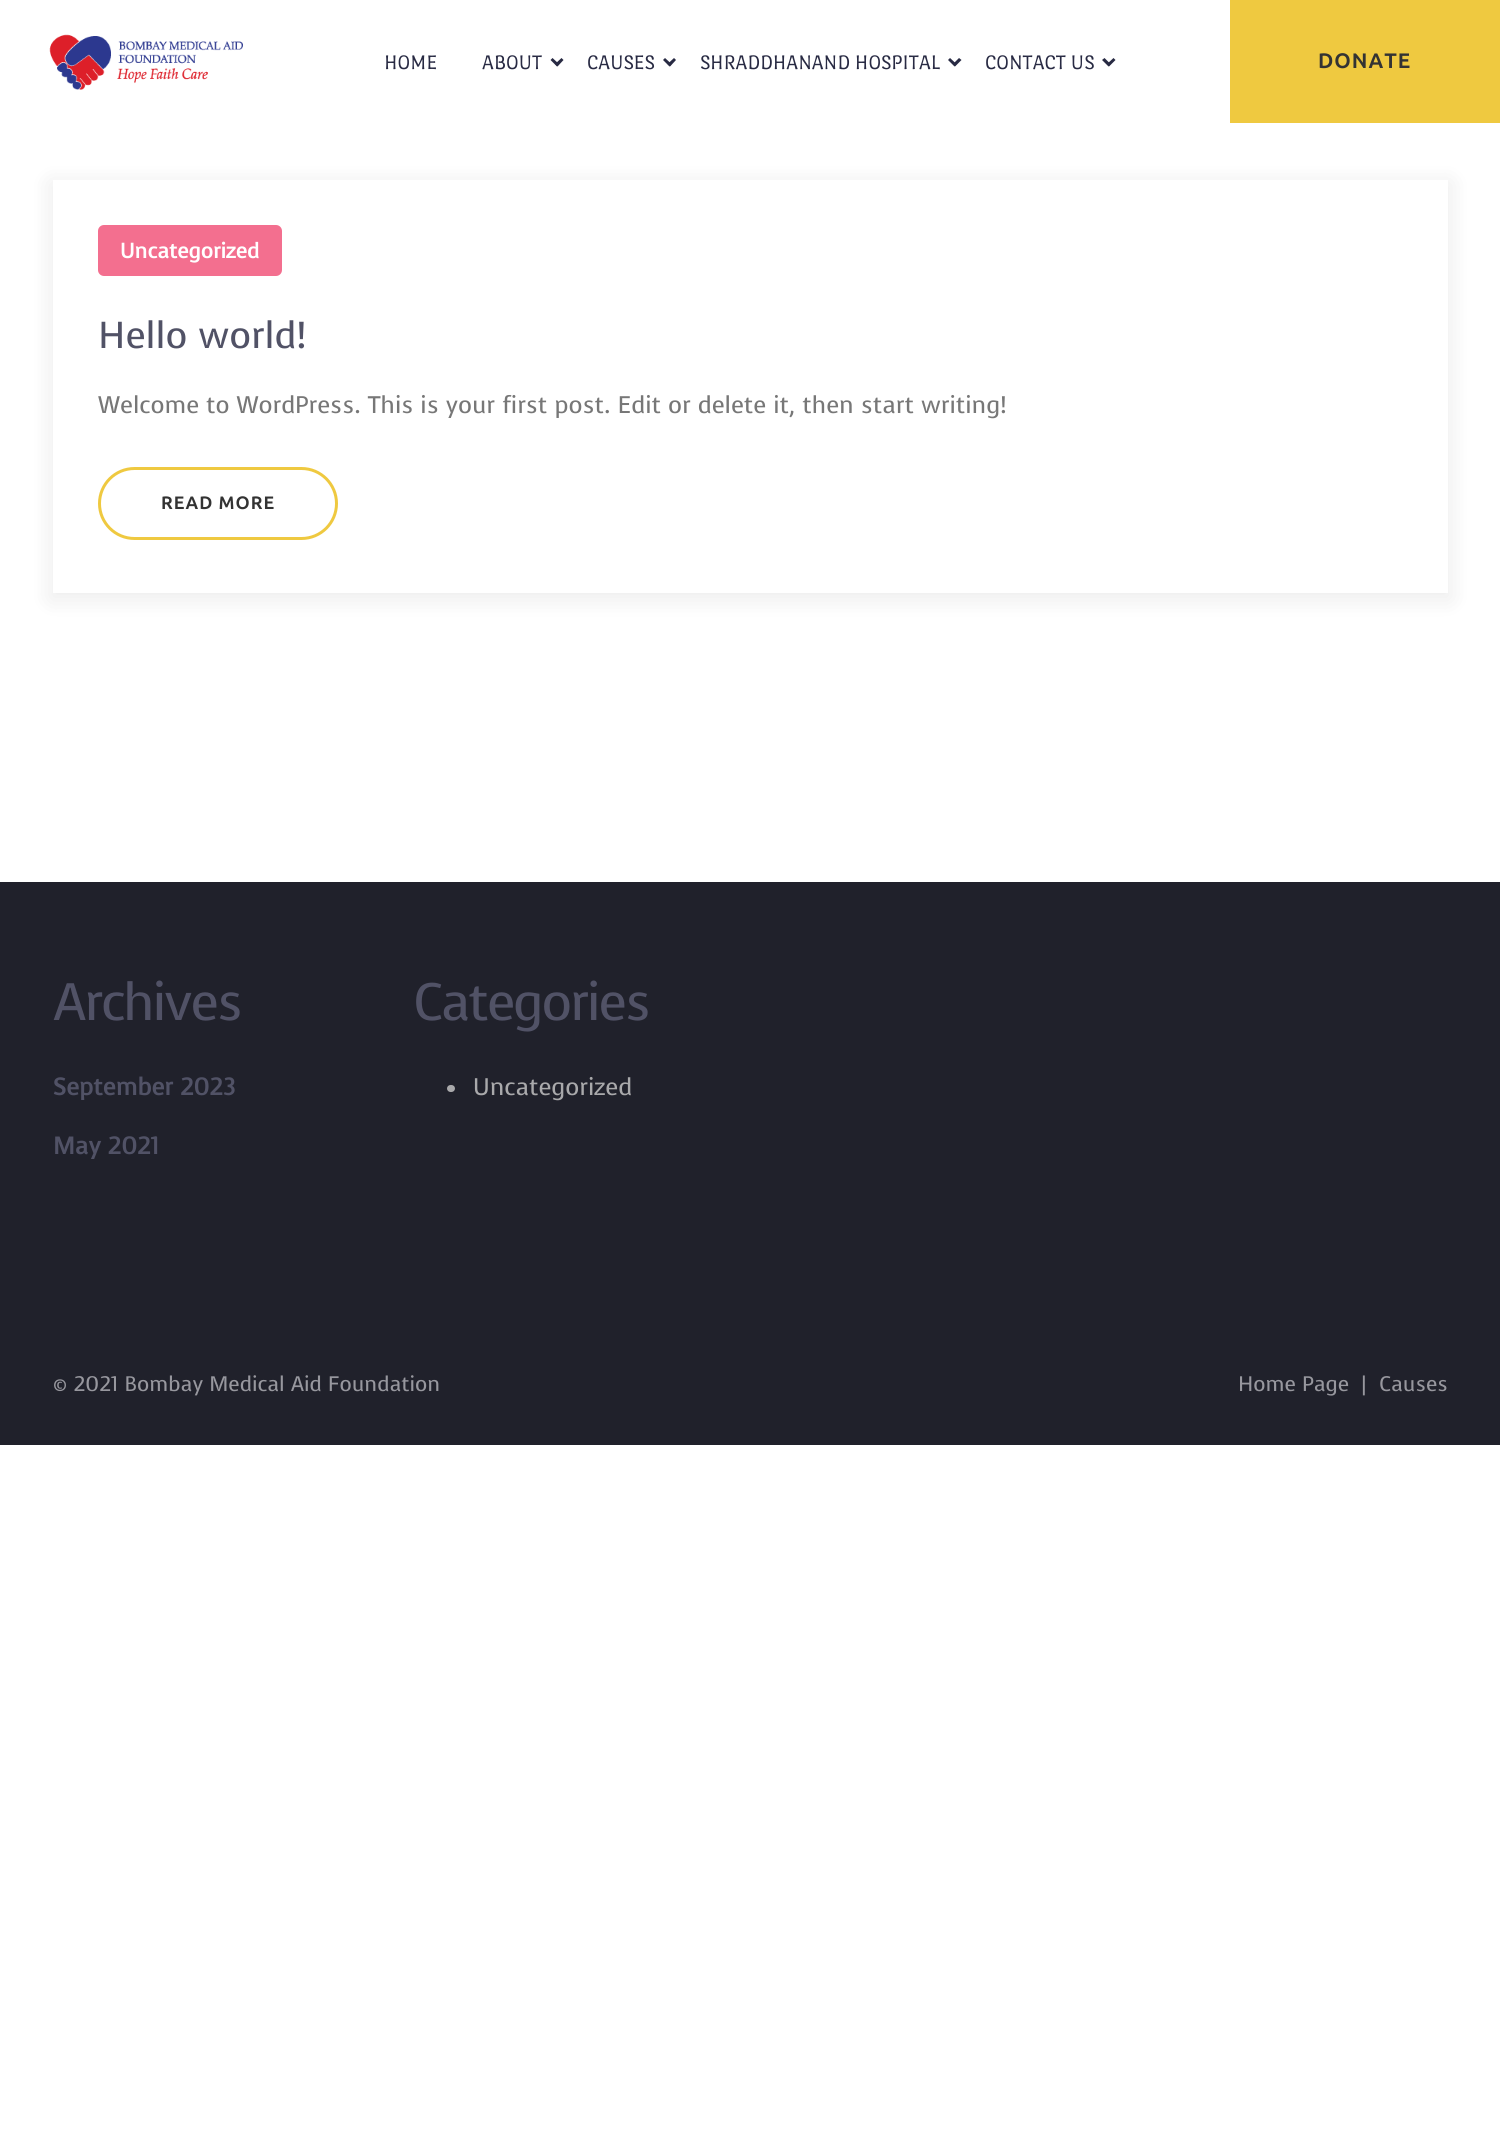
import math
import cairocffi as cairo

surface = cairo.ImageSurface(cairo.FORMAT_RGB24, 1500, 2150)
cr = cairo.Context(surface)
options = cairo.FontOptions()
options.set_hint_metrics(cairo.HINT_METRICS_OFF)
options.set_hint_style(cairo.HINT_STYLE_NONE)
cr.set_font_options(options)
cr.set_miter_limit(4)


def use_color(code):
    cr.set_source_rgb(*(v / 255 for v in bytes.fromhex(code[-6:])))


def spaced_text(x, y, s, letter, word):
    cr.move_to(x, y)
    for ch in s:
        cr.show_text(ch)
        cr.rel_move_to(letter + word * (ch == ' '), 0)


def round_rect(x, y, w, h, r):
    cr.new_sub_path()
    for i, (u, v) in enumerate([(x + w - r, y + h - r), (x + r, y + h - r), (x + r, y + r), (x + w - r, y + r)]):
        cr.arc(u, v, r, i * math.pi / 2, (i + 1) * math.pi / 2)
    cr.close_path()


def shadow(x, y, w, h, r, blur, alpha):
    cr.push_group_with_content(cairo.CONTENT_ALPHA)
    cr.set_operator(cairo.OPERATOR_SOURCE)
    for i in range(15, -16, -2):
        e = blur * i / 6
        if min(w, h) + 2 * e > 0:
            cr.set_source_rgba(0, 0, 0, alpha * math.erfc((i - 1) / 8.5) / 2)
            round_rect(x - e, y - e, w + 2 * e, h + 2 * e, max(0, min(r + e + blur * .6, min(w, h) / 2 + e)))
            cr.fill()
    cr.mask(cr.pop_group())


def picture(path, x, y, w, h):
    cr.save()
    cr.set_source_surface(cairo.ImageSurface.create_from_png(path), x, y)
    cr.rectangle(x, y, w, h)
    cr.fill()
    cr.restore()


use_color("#ffffff")
cr.paint()
picture("img1.png", 49, 34, 194, 56)
cr.select_font_face("Port Lligat Sans")
cr.set_font_size(21)
use_color("#282a43")
cr.move_to(384, 69)
cr.show_text("HOME")
cr.move_to(482, 69)
cr.show_text("ABOUT")
cr.new_path()
cr.move_to(552.5, 58)
cr.line_to(559, 64)
cr.line_to(557, 66.5)
cr.line_to(550.5, 60)
cr.close_path()
cr.fill()
cr.new_path()
cr.move_to(555, 64)
cr.line_to(561.5, 58)
cr.line_to(563.5, 60)
cr.line_to(557.5, 66.5)
cr.close_path()
cr.fill()
cr.move_to(587, 69)
cr.show_text("CAUSES")
cr.new_path()
cr.move_to(665, 58)
cr.line_to(671.5, 64)
cr.line_to(669.5, 66.5)
cr.line_to(663, 60)
cr.close_path()
cr.fill()
cr.new_path()
cr.move_to(667.5, 64)
cr.line_to(674, 58)
cr.line_to(676, 60)
cr.line_to(670, 66.5)
cr.close_path()
cr.fill()
cr.move_to(700, 69)
cr.show_text("SHRADDHANAND HOSPITAL")
cr.new_path()
cr.move_to(950, 58)
cr.line_to(956.5, 64)
cr.line_to(954.5, 66.5)
cr.line_to(948, 60)
cr.close_path()
cr.fill()
cr.new_path()
cr.move_to(953, 64)
cr.line_to(959, 58)
cr.line_to(961.5, 60)
cr.line_to(955, 66.5)
cr.close_path()
cr.fill()
cr.move_to(985, 69)
cr.show_text("CONTACT US")
cr.new_path()
cr.move_to(1104.5, 58)
cr.line_to(1110.5, 64)
cr.line_to(1108.5, 66.5)
cr.line_to(1102, 60)
cr.close_path()
cr.fill()
cr.new_path()
cr.move_to(1107, 64)
cr.line_to(1113.5, 58)
cr.line_to(1115.5, 60)
cr.line_to(1109, 66.5)
cr.close_path()
cr.fill()
use_color("#efc940")
cr.rectangle(1230, 0, 270, 123)
cr.fill()
cr.select_font_face("Ubuntu", cairo.FONT_SLANT_NORMAL, cairo.FONT_WEIGHT_BOLD)
use_color("#333333")
spaced_text(1318, 68, "DONATE", 1, 0)
use_color("#0f0d0d")
shadow(50, 182, 1401, 418, 0, 11, 0.08)
use_color("#ffffff")
cr.rectangle(53, 180, 1395, 413)
cr.fill()
use_color("#f36f8f")
round_rect(98, 225, 184, 51, 6)
cr.fill()
cr.select_font_face("Voces", cairo.FONT_SLANT_NORMAL, cairo.FONT_WEIGHT_BOLD)
use_color("#ffffff")
cr.move_to(120, 258)
cr.show_text("Uncategorized")
cr.select_font_face("Voces")
cr.set_font_size(37.5)
use_color("#515266")
cr.move_to(98, 348)
cr.show_text("Hello world!")
cr.set_font_size(24)
use_color("#777777")
cr.move_to(98, 413)
cr.show_text("Welcome to WordPress. This is your first post. Edit or delete it, then start writing!")
round_rect(99.5, 468.5, 237, 70, 35)
use_color("#efc940")
cr.set_line_width(3)
cr.stroke()
cr.select_font_face("Ubuntu", cairo.FONT_SLANT_NORMAL, cairo.FONT_WEIGHT_BOLD)
cr.set_font_size(18)
use_color("#333333")
spaced_text(161, 509, "READ MORE", 1, 0)
use_color("#20212b")
cr.rectangle(0, 882, 1500, 563)
cr.fill()
cr.select_font_face("Voces")
cr.set_font_size(52.5)
use_color("#515266")
spaced_text(53, 1020, "Archives", -2.1, 0)
cr.select_font_face("Voces", cairo.FONT_SLANT_NORMAL, cairo.FONT_WEIGHT_BOLD)
cr.set_font_size(24)
cr.move_to(53, 1095)
cr.show_text("September 2023")
cr.move_to(53, 1154)
cr.show_text("May 2021")
cr.select_font_face("Voces")
cr.set_font_size(52.5)
spaced_text(413, 1020, "Categories", -2.1, 0)
use_color("#a9a9ab")
round_rect(447, 1085, 8, 7, 3.5)
cr.fill()
cr.set_font_size(24)
cr.move_to(473, 1095)
cr.show_text("Uncategorized")
cr.set_font_size(21)
use_color("#97979e")
cr.move_to(53, 1391)
cr.show_text("© 2021 Bombay Medical Aid Foundation")
cr.move_to(1238, 1391)
cr.show_text("Home Page")
cr.move_to(1361, 1391)
cr.show_text("|")
cr.move_to(1379, 1391)
cr.show_text("Causes")
surface.write_to_png("result.png")
